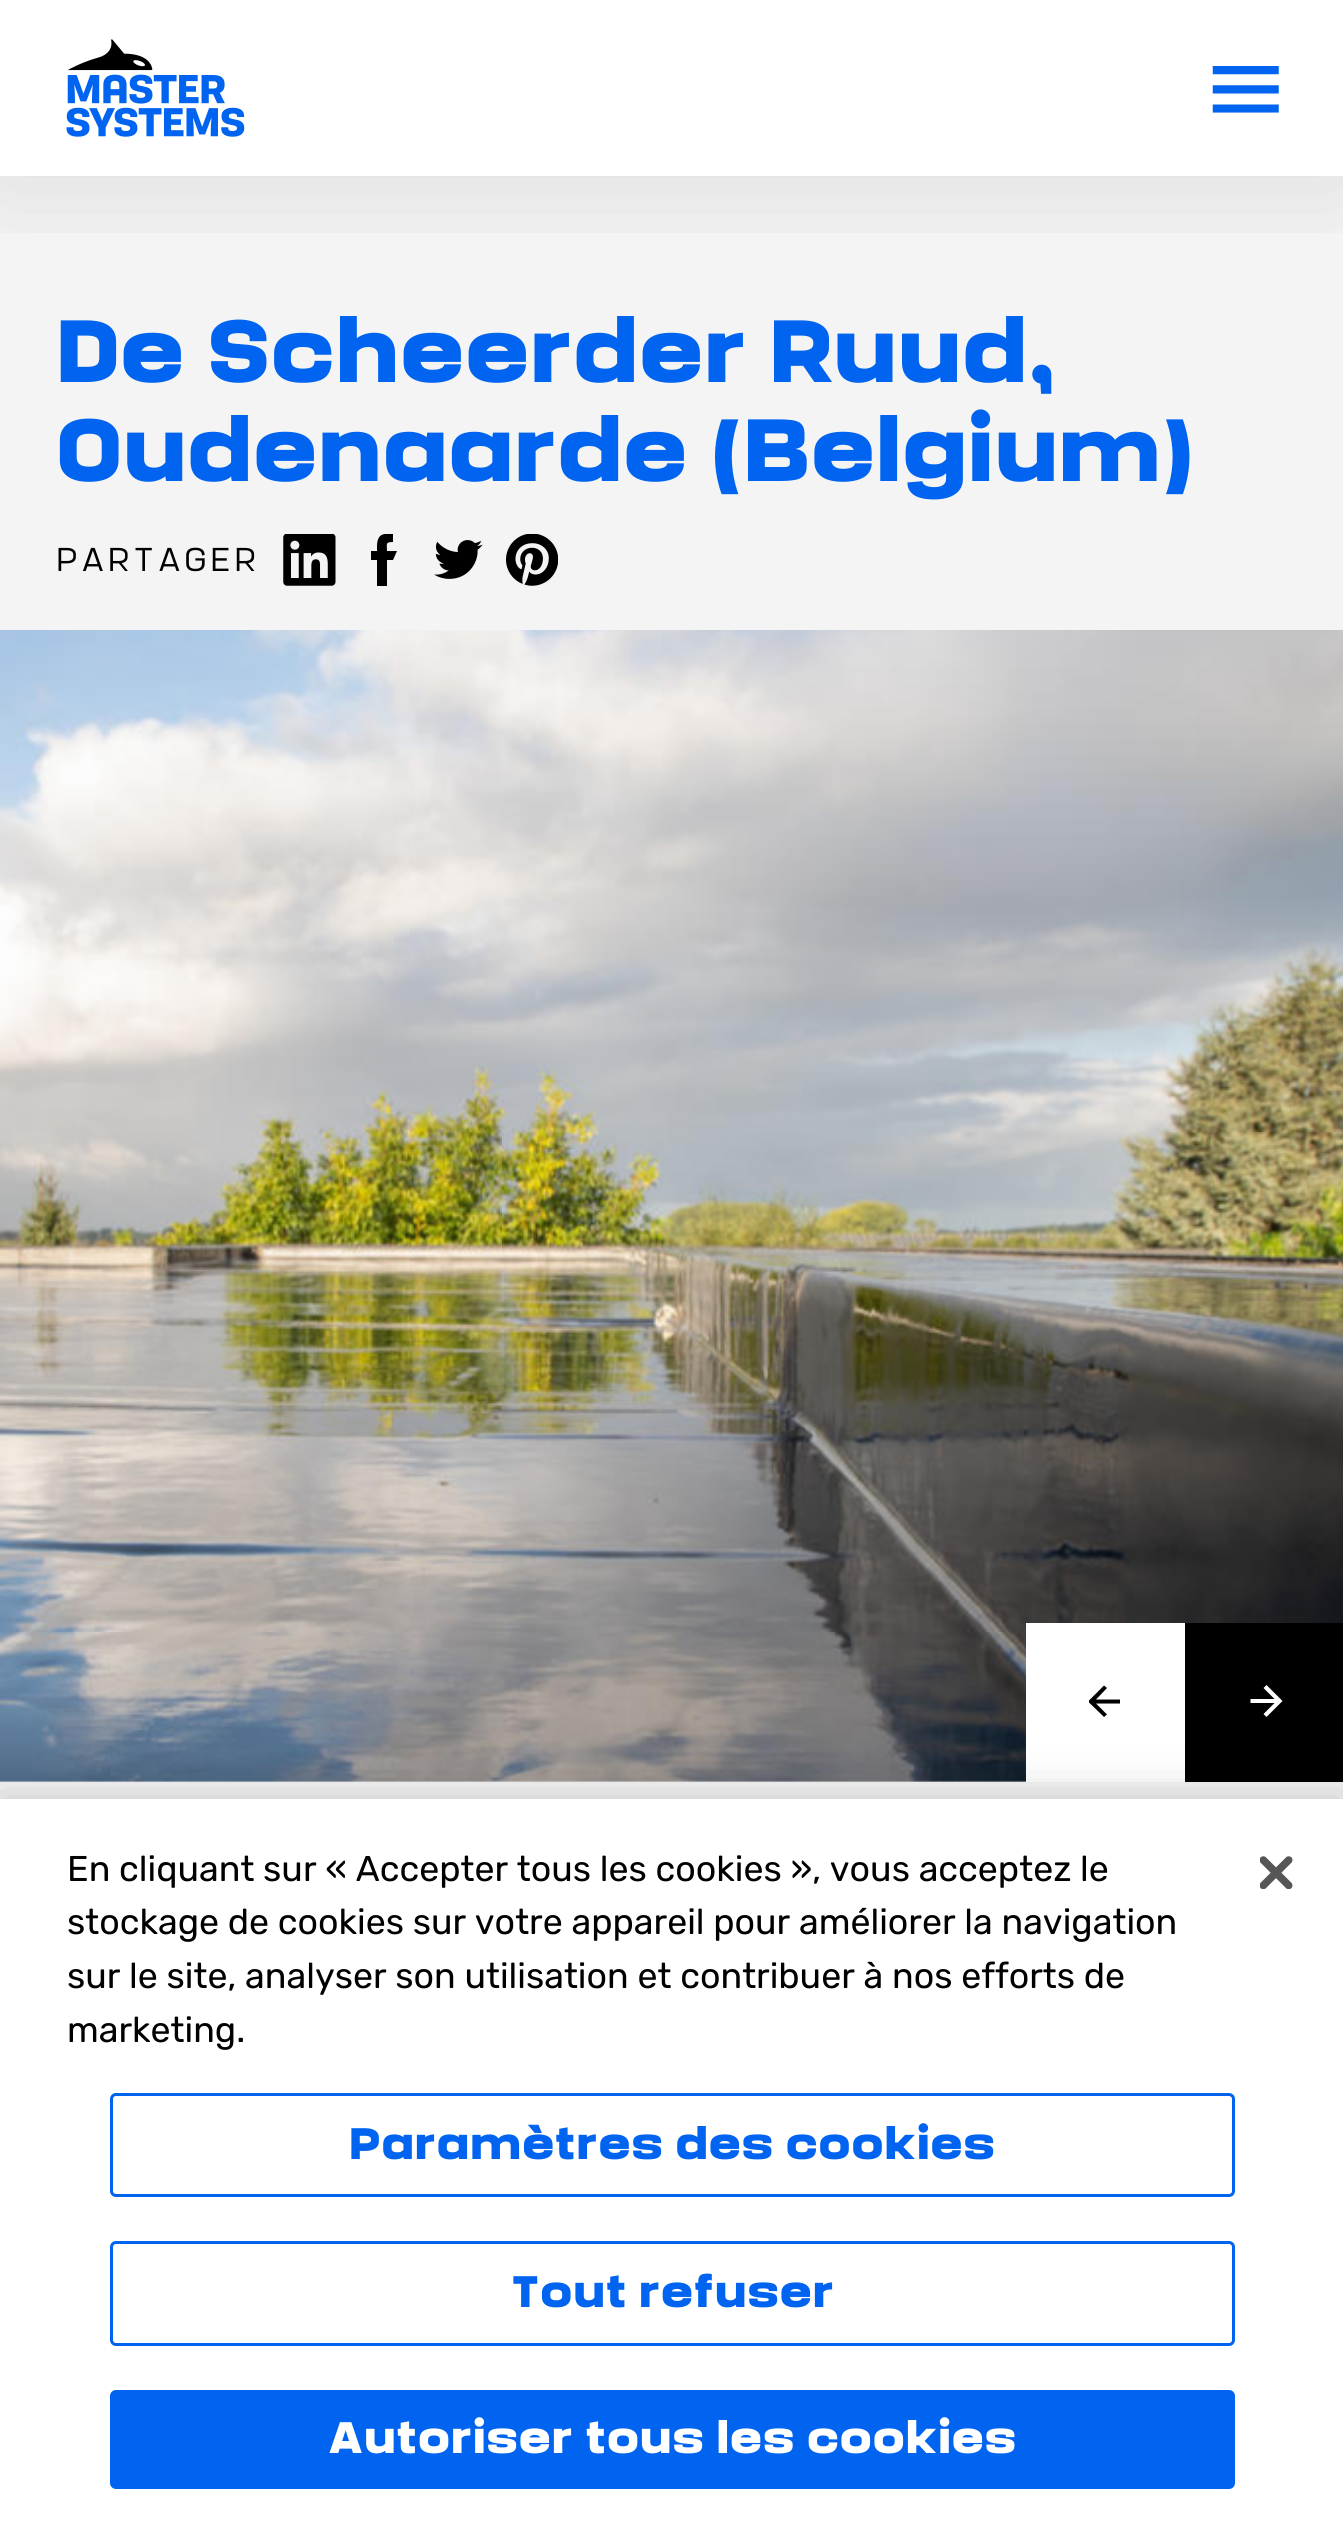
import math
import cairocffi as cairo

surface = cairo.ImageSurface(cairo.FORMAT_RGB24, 1343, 2531)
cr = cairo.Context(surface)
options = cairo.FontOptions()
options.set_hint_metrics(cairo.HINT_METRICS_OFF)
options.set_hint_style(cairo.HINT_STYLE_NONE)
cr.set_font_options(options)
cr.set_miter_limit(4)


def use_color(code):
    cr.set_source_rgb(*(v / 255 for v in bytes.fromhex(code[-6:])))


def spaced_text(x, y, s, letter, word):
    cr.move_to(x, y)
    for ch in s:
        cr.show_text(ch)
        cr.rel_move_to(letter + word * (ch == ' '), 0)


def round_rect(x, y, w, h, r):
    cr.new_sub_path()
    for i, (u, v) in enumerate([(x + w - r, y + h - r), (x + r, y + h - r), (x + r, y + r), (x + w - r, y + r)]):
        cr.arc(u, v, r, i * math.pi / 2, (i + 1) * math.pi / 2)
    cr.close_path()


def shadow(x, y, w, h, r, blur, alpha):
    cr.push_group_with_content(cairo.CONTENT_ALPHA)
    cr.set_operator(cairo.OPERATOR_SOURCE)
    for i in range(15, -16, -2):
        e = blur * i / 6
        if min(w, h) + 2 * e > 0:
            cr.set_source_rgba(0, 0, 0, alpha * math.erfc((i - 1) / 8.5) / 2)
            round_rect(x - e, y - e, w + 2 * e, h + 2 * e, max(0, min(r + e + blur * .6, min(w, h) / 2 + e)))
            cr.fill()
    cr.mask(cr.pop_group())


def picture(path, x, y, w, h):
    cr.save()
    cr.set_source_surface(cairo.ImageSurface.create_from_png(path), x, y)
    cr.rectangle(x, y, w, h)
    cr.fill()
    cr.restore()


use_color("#ffffff")
cr.paint()
use_color("#f4f4f4")
cr.rectangle(0, 176, 1343, 1623)
cr.fill()
cr.save()
cr.rectangle(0, 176, 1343, 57)
cr.clip()
use_color("#000000")
shadow(0, 11, 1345, 176, 0, 55, 0.1)
cr.restore()
picture("img1.png", 66, 39, 179, 98)
picture("img2.png", 1212, 66, 67, 47)
cr.select_font_face("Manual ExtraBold")
cr.set_font_size(88)
use_color("#0064f0")
cr.move_to(56, 382)
cr.show_text("De Scheerder Ruud,")
cr.move_to(56, 481)
cr.show_text("Oudenaarde (Belgium)")
cr.select_font_face("Manual ExtraLight")
cr.set_font_size(33)
use_color("#000000")
spaced_text(56, 571, "PARTAGER", 3.25, 0)
picture("img3.png", 283, 534, 53, 52)
cr.new_path()
cr.move_to(397, 551)
cr.line_to(387, 551)
cr.curve_to(387, 544, 385, 542, 393, 542)
cr.line_to(393, 534)
cr.line_to(385, 534)
cr.curve_to(376, 535, 377, 545, 377, 551)
cr.line_to(371, 551)
cr.line_to(371, 560)
cr.line_to(377, 560)
cr.line_to(377, 586)
cr.line_to(387, 586)
cr.line_to(387, 560)
cr.line_to(393, 560)
cr.close_path()
cr.fill()
picture("img4.png", 434, 540, 49, 39)
picture("img5.png", 506, 534, 52, 52)
picture("img6.png", 0, 630, 1343, 1152)
use_color("#ffffff")
cr.rectangle(1026, 1623, 159, 159)
cr.fill()
cr.save()
cr.rectangle(1089, 1683, 36, 36)
cr.clip()
use_color("#000000")
cr.new_path()
cr.move_to(1104, 1717)
cr.line_to(1107, 1714.5)
cr.line_to(1096, 1703.5)
cr.line_to(1120, 1703.5)
cr.line_to(1120, 1699.5)
cr.line_to(1096, 1699.5)
cr.line_to(1107, 1688)
cr.line_to(1104, 1685.5)
cr.line_to(1088, 1701.5)
cr.close_path()
cr.fill()
cr.restore()
use_color("#000000")
cr.rectangle(1185, 1623, 158, 159)
cr.fill()
use_color("#ffffff")
cr.new_path()
cr.move_to(1266.5, 1685)
cr.line_to(1263.5, 1688)
cr.line_to(1274.5, 1699)
cr.line_to(1250.5, 1699)
cr.line_to(1250.5, 1703)
cr.line_to(1274.5, 1703)
cr.line_to(1263.5, 1714)
cr.line_to(1266.5, 1717)
cr.line_to(1282.5, 1701)
cr.close_path()
cr.fill()
use_color("#000000")
shadow(0, 1799, 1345, 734, 0, 25, 0.2)
use_color("#ffffff")
cr.rectangle(0, 1799, 1343, 732)
cr.fill()
cr.select_font_face("Rubik")
cr.set_font_size(35.75)
use_color("#000000")
cr.move_to(67, 1881)
cr.show_text("En cliquant sur « Accepter tous les cookies », vous acceptez le")
cr.move_to(67, 1934)
cr.show_text("stockage de cookies sur votre appareil pour améliorer la navigation")
cr.move_to(67, 1988)
cr.show_text("sur le site, analyser son utilisation et contribuer à nos efforts de")
cr.move_to(67, 2042)
cr.show_text("marketing.")
round_rect(111.5, 2094.5, 1122, 101, 4.5)
use_color("#0064f0")
cr.set_line_width(3)
cr.stroke()
cr.select_font_face("Manual ExtraBold")
cr.set_font_size(44)
spaced_text(349, 2159, "Paramètres des cookies", 0.45, 0)
round_rect(111.5, 2242.5, 1122, 102, 4.5)
cr.stroke()
spaced_text(511, 2307, "Tout refuser", 0.45, 0)
round_rect(110, 2390, 1125, 99, 6)
cr.fill()
use_color("#ffffff")
spaced_text(328, 2453, "Autoriser tous les cookies", 0.45, 0)
picture("img7.png", 1260, 1856, 33, 33)
surface.write_to_png("result.png")
